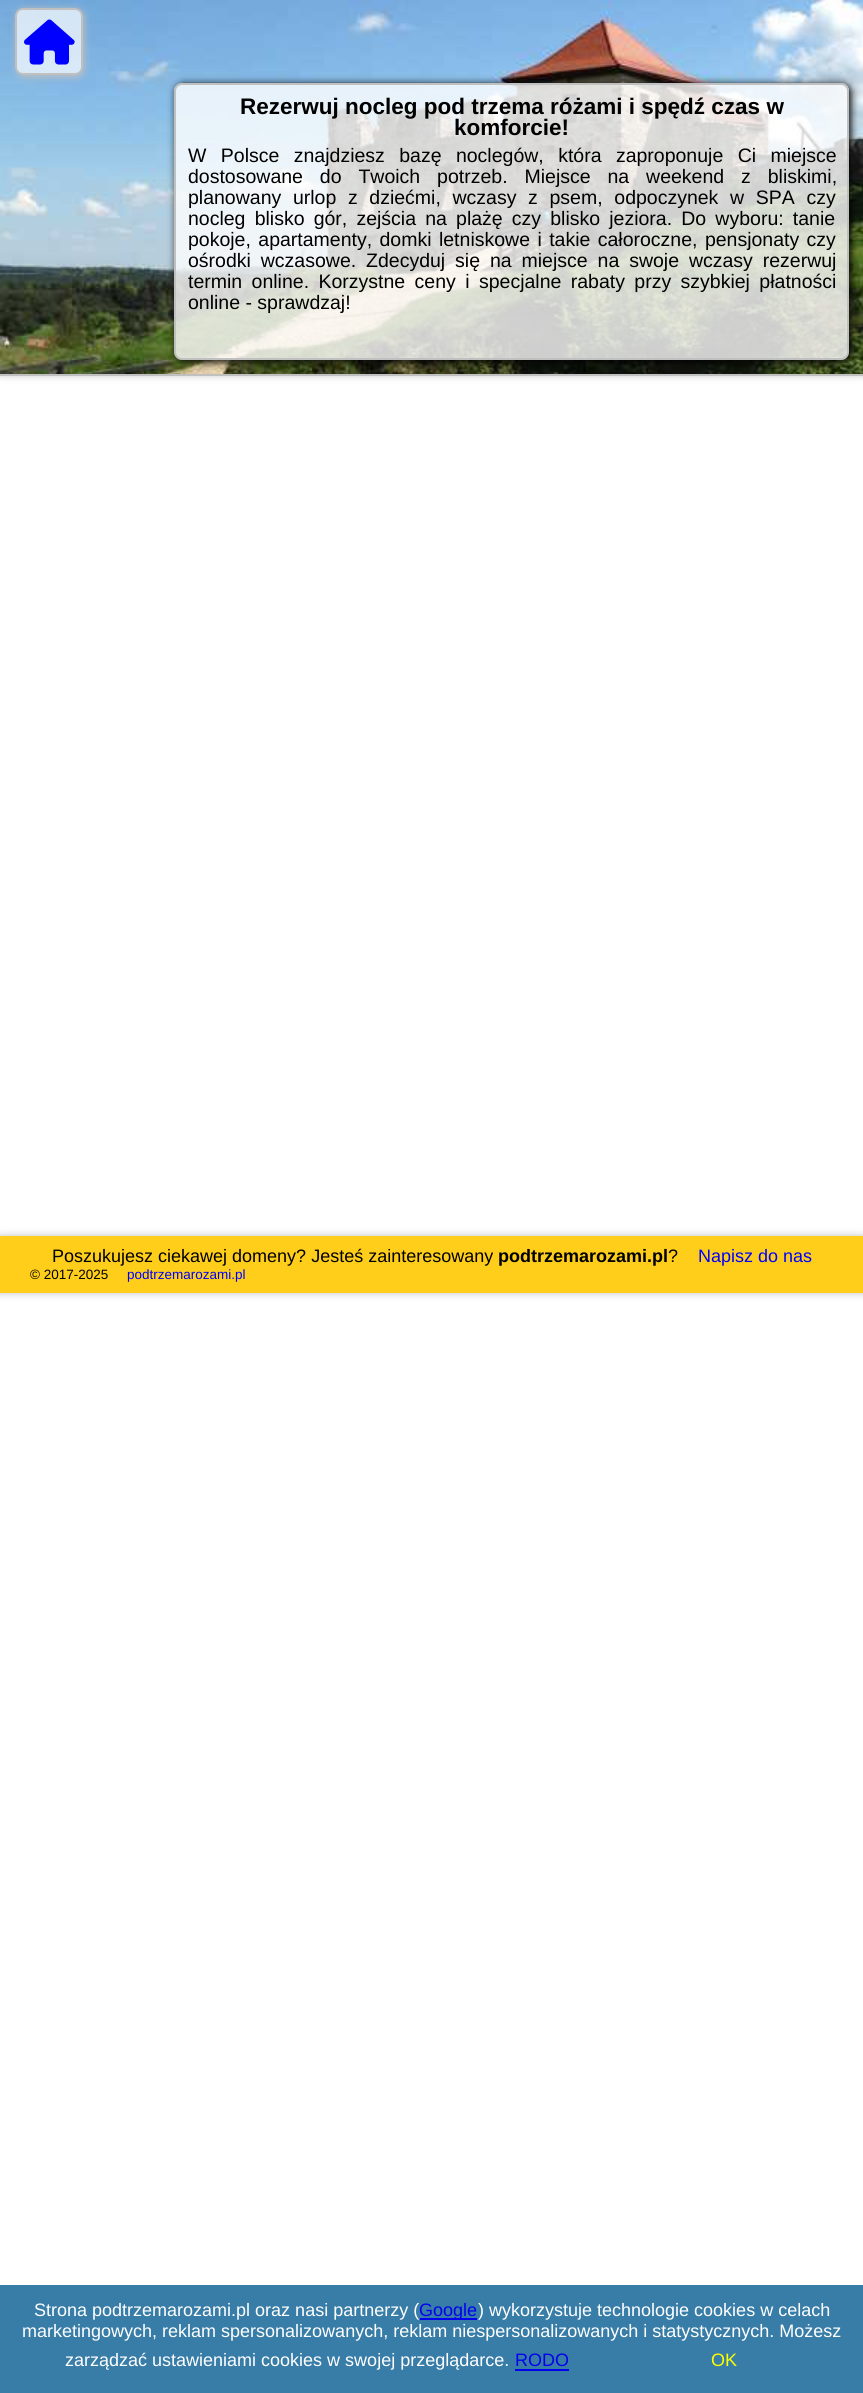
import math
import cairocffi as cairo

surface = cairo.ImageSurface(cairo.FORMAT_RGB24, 863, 2393)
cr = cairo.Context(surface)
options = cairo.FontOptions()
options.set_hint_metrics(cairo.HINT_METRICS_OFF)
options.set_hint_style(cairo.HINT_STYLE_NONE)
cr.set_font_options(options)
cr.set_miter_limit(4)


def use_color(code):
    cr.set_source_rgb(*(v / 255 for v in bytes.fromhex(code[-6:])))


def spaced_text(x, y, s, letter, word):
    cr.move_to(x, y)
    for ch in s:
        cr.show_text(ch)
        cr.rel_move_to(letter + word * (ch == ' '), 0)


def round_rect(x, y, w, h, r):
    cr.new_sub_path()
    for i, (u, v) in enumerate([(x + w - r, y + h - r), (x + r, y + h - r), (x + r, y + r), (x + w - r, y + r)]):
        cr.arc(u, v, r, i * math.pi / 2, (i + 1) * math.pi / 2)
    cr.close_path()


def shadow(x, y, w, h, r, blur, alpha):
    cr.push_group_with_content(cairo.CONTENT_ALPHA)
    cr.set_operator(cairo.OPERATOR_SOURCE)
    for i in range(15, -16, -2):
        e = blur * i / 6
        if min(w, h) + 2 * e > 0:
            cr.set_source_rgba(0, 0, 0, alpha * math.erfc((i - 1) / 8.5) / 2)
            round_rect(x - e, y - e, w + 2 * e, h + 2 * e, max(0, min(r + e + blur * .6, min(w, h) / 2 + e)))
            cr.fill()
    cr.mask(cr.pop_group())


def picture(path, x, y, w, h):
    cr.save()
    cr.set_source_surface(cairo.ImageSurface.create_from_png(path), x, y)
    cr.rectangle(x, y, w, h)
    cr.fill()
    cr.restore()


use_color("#ffffff")
cr.paint()
use_color("#c0c0c0")
shadow(0, 0, 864, 375, 0, 4, 1)
picture("img1.png", 0, 0, 863, 374)
use_color("#c0c0c0")
cr.rectangle(0, 374, 863, 2)
cr.fill()
cr.save()
cr.set_fill_rule(cairo.FILL_RULE_EVEN_ODD)
cr.new_path()
cr.move_to(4, 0)
cr.line_to(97, 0)
cr.line_to(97, 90)
cr.line_to(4, 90)
cr.close_path()
cr.move_to(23, 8)
cr.line_to(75, 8)
cr.curve_to(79.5, 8, 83, 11.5, 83, 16)
cr.line_to(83, 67)
cr.curve_to(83, 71.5, 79.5, 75, 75, 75)
cr.line_to(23, 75)
cr.curve_to(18.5, 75, 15, 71.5, 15, 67)
cr.line_to(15, 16)
cr.curve_to(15, 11.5, 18.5, 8, 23, 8)
cr.close_path()
cr.clip()
use_color("#c0c0c0")
shadow(17, 9, 67, 68, 8, 4, 1)
cr.restore()
cr.set_source_rgba(1, 1, 1, 0.7)
round_rect(16, 9, 66, 65, 7)
cr.fill_preserve()
use_color("#c0c0c0")
cr.stroke()
picture("img2.png", 24, 19, 51, 46)
cr.save()
cr.set_fill_rule(cairo.FILL_RULE_EVEN_ODD)
cr.new_path()
cr.move_to(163, 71)
cr.line_to(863, 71)
cr.line_to(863, 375)
cr.line_to(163, 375)
cr.close_path()
cr.move_to(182, 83)
cr.line_to(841, 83)
cr.curve_to(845.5, 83, 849, 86.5, 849, 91)
cr.line_to(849, 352)
cr.curve_to(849, 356.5, 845.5, 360, 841, 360)
cr.line_to(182, 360)
cr.curve_to(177.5, 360, 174, 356.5, 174, 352)
cr.line_to(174, 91)
cr.curve_to(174, 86.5, 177.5, 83, 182, 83)
cr.close_path()
cr.clip()
use_color("#000000")
shadow(176, 84, 675, 278, 8, 4, 1)
cr.restore()
cr.set_source_rgba(1, 1, 1, 0.8)
round_rect(175, 84, 673, 275, 7)
cr.fill_preserve()
use_color("#c0c0c0")
cr.stroke()
cr.select_font_face("Liberation Sans", cairo.FONT_SLANT_NORMAL, cairo.FONT_WEIGHT_BOLD)
cr.set_font_size(22.5)
use_color("#000000")
cr.move_to(240, 114)
cr.show_text("Rezerwuj nocleg pod trzema różami i spędź czas w")
cr.move_to(454, 135)
cr.show_text("komforcie!")
cr.select_font_face("Liberation Sans")
cr.set_font_size(19.5)
spaced_text(188, 162, "W Polsce znajdziesz bazę noclegów, która zaproponuje Ci miejsce", 0, 9)
spaced_text(188, 183, "dostosowane do Twoich potrzeb. Miejsce na weekend z bliskimi,", 0, 11.5)
spaced_text(188, 204, "planowany urlop z dziećmi, wczasy z psem, odpoczynek w SPA czy", 0, 6.25)
spaced_text(188, 225, "nocleg blisko gór, zejścia na plażę czy blisko jeziora. Do wyboru: tanie", 0, 3.75)
spaced_text(188, 246, "pokoje, apartamenty, domki letniskowe i takie całoroczne, pensjonaty czy", 0, 2)
spaced_text(188, 267, "ośrodki wczasowe. Zdecyduj się na miejsce na swoje wczasy rezerwuj", 0, 4.5)
spaced_text(188, 288, "termin online. Korzystne ceny i specjalne rabaty przy szybkiej płatności", 0, 4)
cr.move_to(188, 309)
cr.show_text("online - sprawdzaj!")
use_color("#c0c0c0")
shadow(0, 1236, 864, 57, 0, 4, 1)
use_color("#ffce1a")
cr.rectangle(0, 1236, 863, 57)
cr.fill()
cr.set_font_size(18)
use_color("#000000")
cr.move_to(52, 1262)
cr.show_text("Poszukujesz ciekawej domeny? Jesteś zainteresowany")
cr.select_font_face("Liberation Sans", cairo.FONT_SLANT_NORMAL, cairo.FONT_WEIGHT_BOLD)
cr.move_to(498, 1262)
cr.show_text("podtrzemarozami.pl")
cr.select_font_face("Liberation Sans")
cr.move_to(668, 1262)
cr.show_text("?")
use_color("#0000ff")
cr.move_to(698, 1262)
cr.show_text("Napisz do nas")
cr.set_font_size(13.5)
use_color("#000000")
cr.move_to(30, 1279)
cr.show_text("© 2017-2025")
use_color("#0000ff")
cr.move_to(127, 1279)
cr.show_text("podtrzemarozami.pl")
use_color("#387da7")
cr.rectangle(0, 2285, 863, 108)
cr.fill()
cr.set_font_size(18)
use_color("#ffffff")
cr.move_to(34, 2316)
cr.show_text("Strona podtrzemarozami.pl oraz nasi partnerzy (")
use_color("#0000ee")
cr.rectangle(420, 2318, 57, 2)
cr.fill()
cr.move_to(419, 2316)
cr.show_text("Google")
use_color("#ffffff")
cr.move_to(478, 2316)
cr.show_text(") wykorzystuje technologie cookies w celach")
cr.move_to(22, 2337)
cr.show_text("marketingowych, reklam spersonalizowanych, reklam niespersonalizowanych i statystycznych. Możesz")
cr.move_to(65, 2366)
cr.show_text("zarządzać ustawieniami cookies w swojej przeglądarce.")
use_color("#0000ee")
cr.move_to(515, 2366)
cr.show_text("RODO")
cr.rectangle(515, 2369, 54, 2)
cr.fill()
use_color("#ffff00")
cr.move_to(711, 2366)
cr.show_text("OK")
surface.write_to_png("result.png")
